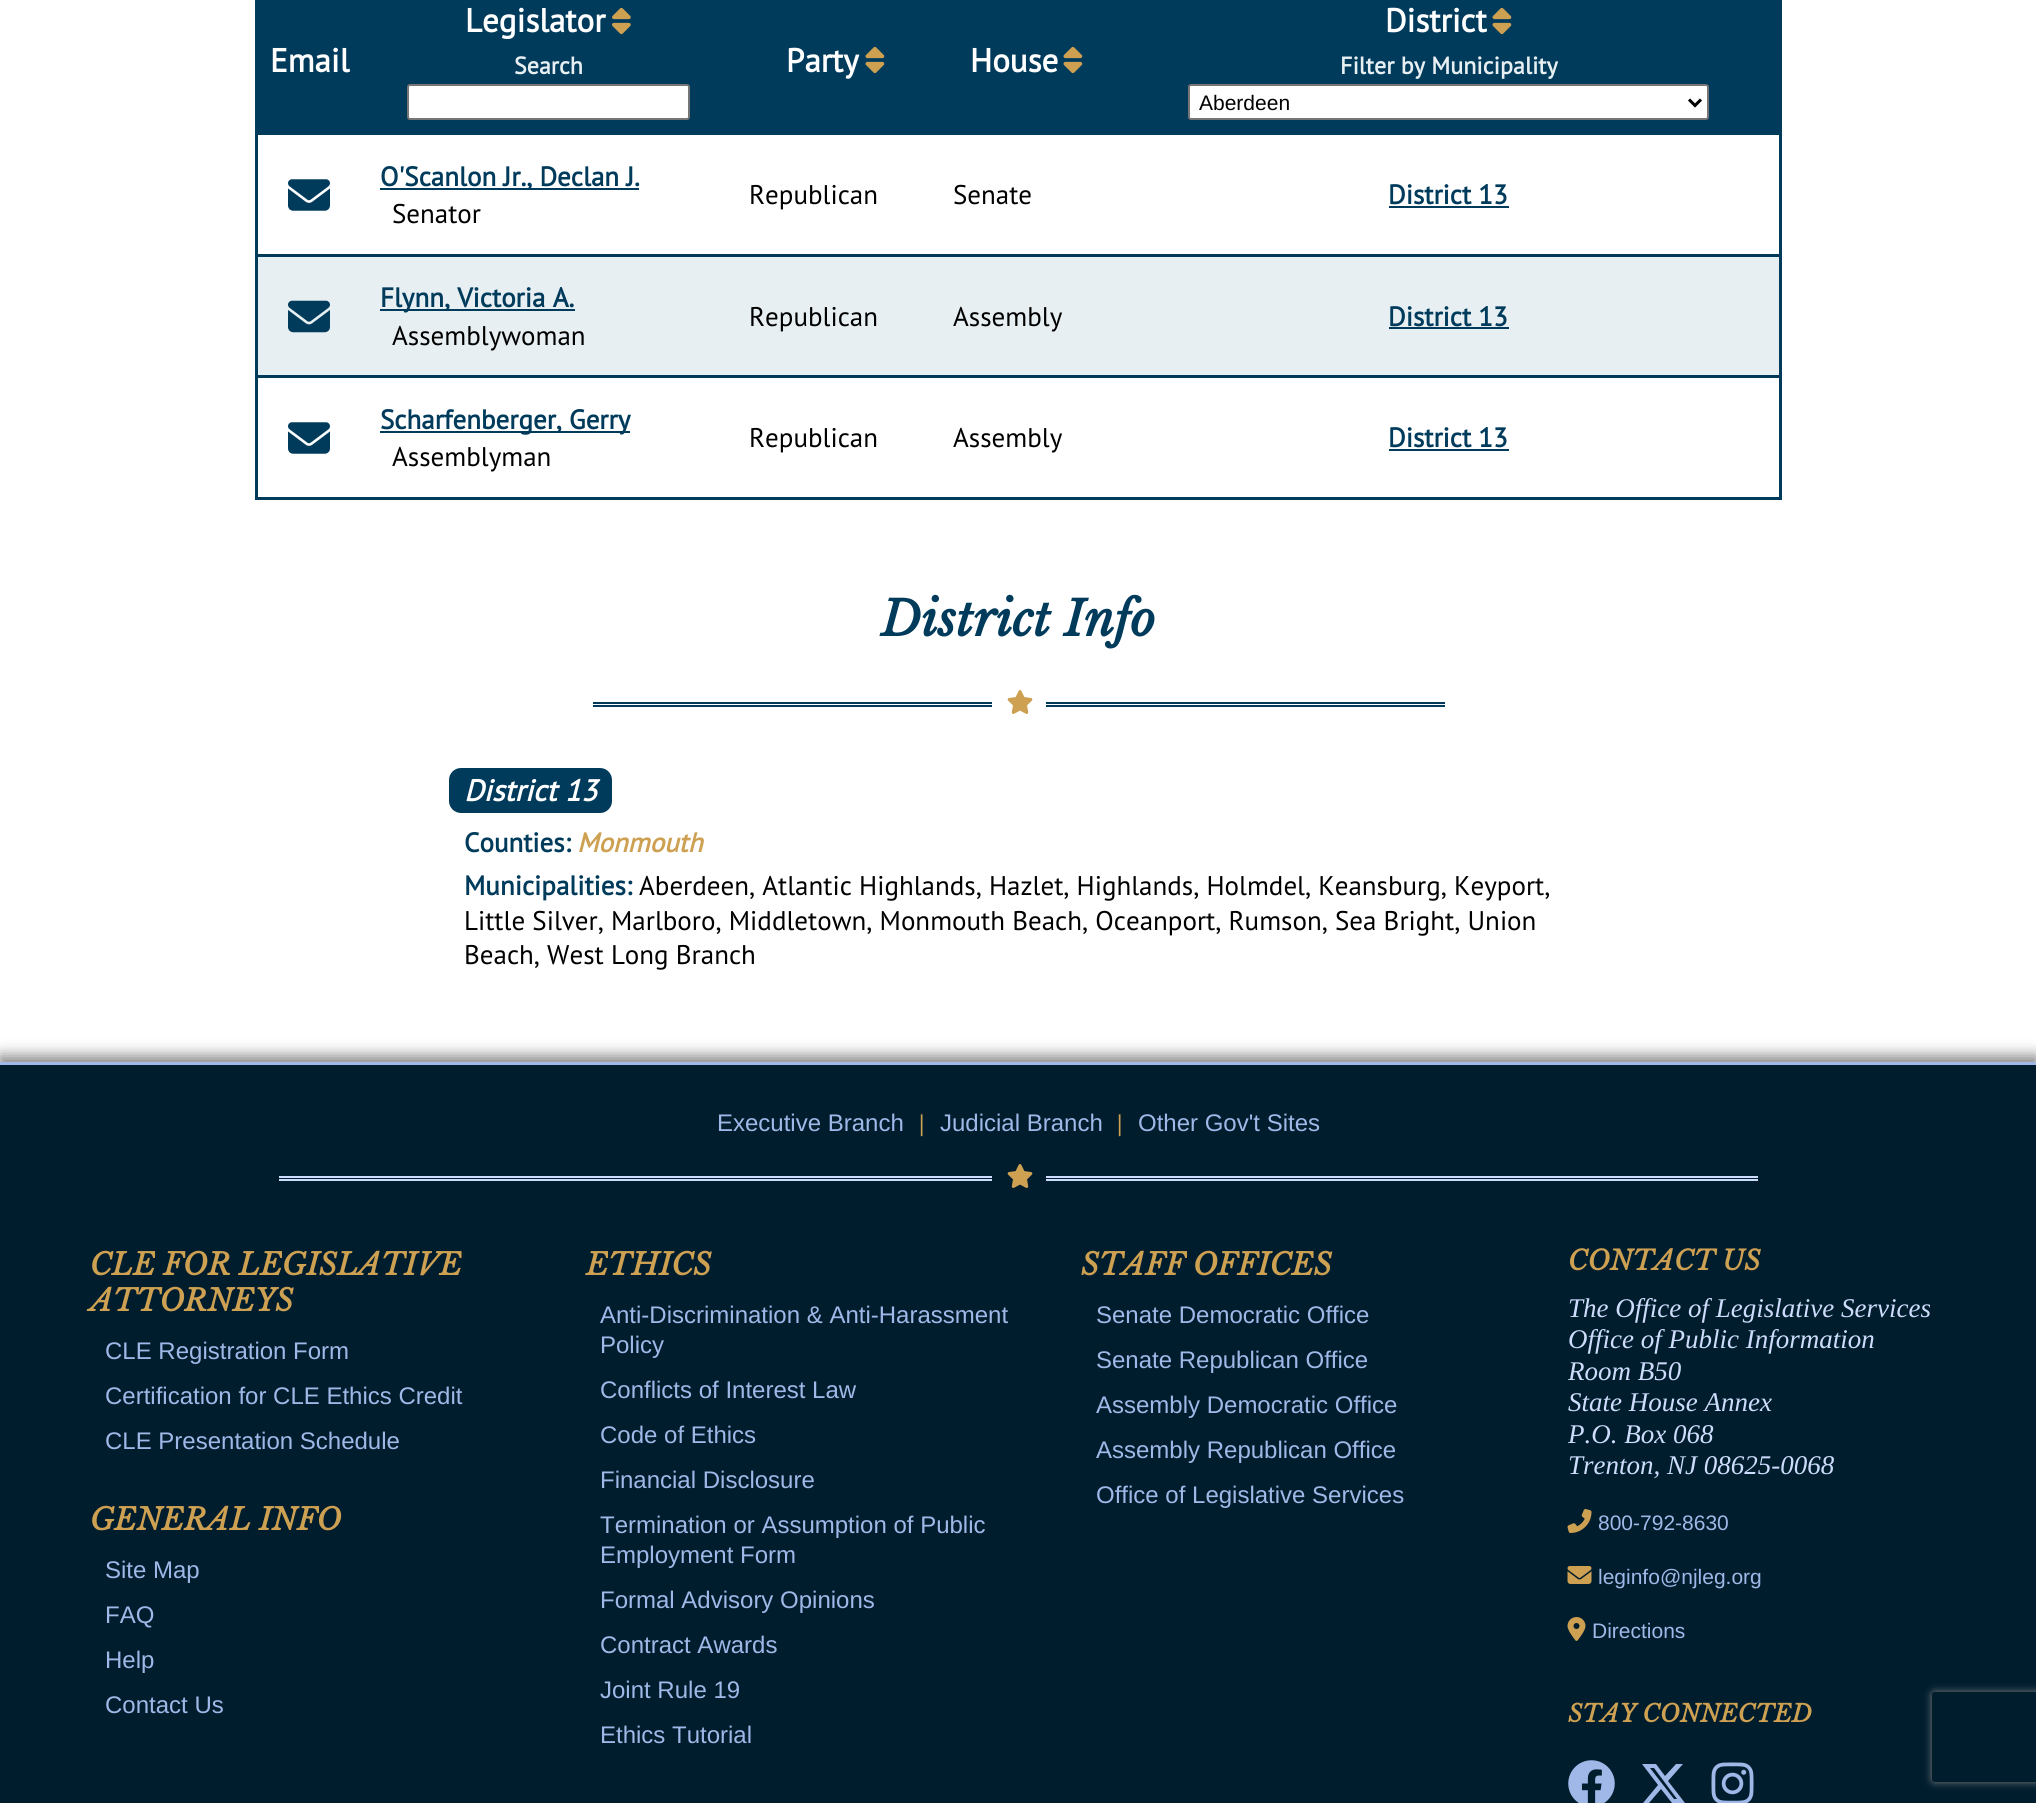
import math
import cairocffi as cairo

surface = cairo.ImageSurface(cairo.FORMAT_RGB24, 2036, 1803)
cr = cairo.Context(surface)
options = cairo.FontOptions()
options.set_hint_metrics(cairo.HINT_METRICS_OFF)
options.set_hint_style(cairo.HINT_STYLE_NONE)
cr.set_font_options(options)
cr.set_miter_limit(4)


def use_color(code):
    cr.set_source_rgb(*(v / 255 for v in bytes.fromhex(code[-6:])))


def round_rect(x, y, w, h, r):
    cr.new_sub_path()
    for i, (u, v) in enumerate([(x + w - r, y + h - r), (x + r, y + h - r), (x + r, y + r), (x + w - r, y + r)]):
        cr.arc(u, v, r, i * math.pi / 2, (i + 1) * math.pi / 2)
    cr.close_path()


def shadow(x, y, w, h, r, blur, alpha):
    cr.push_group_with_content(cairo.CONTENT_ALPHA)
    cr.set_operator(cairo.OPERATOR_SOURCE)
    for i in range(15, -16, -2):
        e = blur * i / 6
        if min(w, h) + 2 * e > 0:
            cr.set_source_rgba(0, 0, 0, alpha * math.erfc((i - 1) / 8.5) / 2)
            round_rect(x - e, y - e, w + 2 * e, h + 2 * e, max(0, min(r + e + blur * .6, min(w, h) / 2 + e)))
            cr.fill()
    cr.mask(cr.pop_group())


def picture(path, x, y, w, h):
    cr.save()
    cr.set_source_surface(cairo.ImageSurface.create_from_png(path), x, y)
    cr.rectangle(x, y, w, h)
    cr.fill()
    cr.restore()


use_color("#ffffff")
cr.paint()
use_color("#003b5c")
cr.rectangle(255, 0, 1527, 500)
cr.fill()
cr.select_font_face("PT Sans", cairo.FONT_SLANT_NORMAL, cairo.FONT_WEIGHT_BOLD)
cr.set_font_size(33)
use_color("#ffffff")
cr.move_to(270, 72)
cr.show_text("Email")
cr.move_to(465, 32)
cr.show_text("Legislator")
picture("img1.png", 612, 7, 19, 28)
cr.set_font_size(24)
use_color("#e7eff2")
cr.move_to(514, 74)
cr.show_text("Search")
use_color("#ffffff")
round_rect(408, 85, 281, 34, 2)
cr.fill_preserve()
use_color("#767676")
cr.stroke()
cr.set_font_size(33)
use_color("#ffffff")
cr.move_to(786, 72)
cr.show_text("Party")
picture("img2.png", 865, 46, 20, 28)
cr.move_to(970, 72)
cr.show_text("House")
picture("img2.png", 1063, 46, 20, 28)
cr.move_to(1385, 32)
cr.show_text("District")
picture("img2.png", 1492, 7, 20, 28)
cr.set_font_size(24)
use_color("#e7eff2")
cr.move_to(1340, 74)
cr.show_text("Filter by Municipality")
use_color("#ffffff")
round_rect(1189, 85, 519, 34, 2)
cr.fill_preserve()
use_color("#767676")
cr.stroke()
cr.new_path()
cr.move_to(1689, 99.5)
cr.line_to(1695, 105.5)
cr.line_to(1701, 99.5)
use_color("#000000")
cr.set_line_width(3)
cr.stroke()
cr.select_font_face("Liberation Sans")
cr.set_font_size(21)
cr.move_to(1199, 110)
cr.show_text("Aberdeen")
use_color("#ffffff")
cr.rectangle(258, 135, 1521, 119)
cr.fill()
picture("img3.png", 288, 179, 42, 32)
use_color("#003b5c")
cr.rectangle(380, 188, 259, 2)
cr.fill()
cr.select_font_face("PT Sans", cairo.FONT_SLANT_NORMAL, cairo.FONT_WEIGHT_BOLD)
cr.set_font_size(27)
cr.move_to(380, 186)
cr.show_text("O'Scanlon Jr., Declan J.")
cr.select_font_face("PT Sans")
use_color("#000000")
cr.move_to(392, 223)
cr.show_text("Senator")
cr.move_to(749, 204)
cr.show_text("Republican")
cr.move_to(953, 204)
cr.show_text("Senate")
cr.select_font_face("PT Sans", cairo.FONT_SLANT_NORMAL, cairo.FONT_WEIGHT_BOLD)
use_color("#003b5c")
cr.move_to(1388, 204)
cr.show_text("District 13")
cr.rectangle(1389, 206, 120, 2)
cr.fill()
use_color("#e7eff2")
cr.rectangle(258, 257, 1521, 118)
cr.fill()
picture("img4.png", 288, 300, 42, 33)
use_color("#003b5c")
cr.rectangle(380, 309, 195, 2)
cr.fill()
cr.move_to(380, 307)
cr.show_text("Flynn, Victoria A.")
cr.select_font_face("PT Sans")
use_color("#000000")
cr.move_to(392, 345)
cr.show_text("Assemblywoman")
cr.move_to(749, 326)
cr.show_text("Republican")
cr.move_to(953, 326)
cr.show_text("Assembly")
cr.select_font_face("PT Sans", cairo.FONT_SLANT_NORMAL, cairo.FONT_WEIGHT_BOLD)
use_color("#003b5c")
cr.move_to(1388, 326)
cr.show_text("District 13")
cr.rectangle(1389, 327, 120, 2)
cr.fill()
use_color("#ffffff")
cr.rectangle(258, 378, 1521, 119)
cr.fill()
picture("img3.png", 288, 422, 42, 32)
use_color("#003b5c")
cr.rectangle(380, 431, 250, 2)
cr.fill()
cr.move_to(380, 429)
cr.show_text("Scharfenberger, Gerry")
cr.select_font_face("PT Sans")
use_color("#000000")
cr.move_to(392, 466)
cr.show_text("Assemblyman")
cr.move_to(749, 447)
cr.show_text("Republican")
cr.move_to(953, 447)
cr.show_text("Assembly")
cr.select_font_face("PT Sans", cairo.FONT_SLANT_NORMAL, cairo.FONT_WEIGHT_BOLD)
use_color("#003b5c")
cr.move_to(1388, 447)
cr.show_text("District 13")
cr.rectangle(1389, 449, 120, 2)
cr.fill()
cr.select_font_face("Libre Baskerville", cairo.FONT_SLANT_ITALIC, cairo.FONT_WEIGHT_BOLD)
cr.set_font_size(48)
cr.move_to(881, 636)
cr.show_text("District Info")
cr.rectangle(593, 702, 399, 2)
cr.fill()
cr.rectangle(593, 705, 399, 2)
cr.fill()
picture("img5.png", 1007, 690, 26, 24)
cr.rectangle(1046, 702, 399, 2)
cr.fill()
cr.rectangle(1046, 705, 399, 2)
cr.fill()
round_rect(449, 768, 163, 45, 12)
cr.fill()
cr.select_font_face("PT Sans", cairo.FONT_SLANT_ITALIC, cairo.FONT_WEIGHT_BOLD)
cr.set_font_size(30)
use_color("#ffffff")
cr.move_to(464, 801)
cr.show_text("District 13")
cr.select_font_face("PT Sans", cairo.FONT_SLANT_NORMAL, cairo.FONT_WEIGHT_BOLD)
cr.set_font_size(27)
use_color("#003b5c")
cr.move_to(464, 852)
cr.show_text("Counties:")
cr.select_font_face("PT Sans", cairo.FONT_SLANT_ITALIC, cairo.FONT_WEIGHT_BOLD)
use_color("#cda052")
cr.move_to(577, 852)
cr.show_text("Monmouth")
cr.select_font_face("PT Sans", cairo.FONT_SLANT_NORMAL, cairo.FONT_WEIGHT_BOLD)
use_color("#003b5c")
cr.move_to(464, 895)
cr.show_text("Municipalities:")
cr.select_font_face("PT Sans")
use_color("#000000")
cr.move_to(639, 895)
cr.show_text("Aberdeen, Atlantic Highlands, Hazlet, Highlands, Holmdel, Keansburg, Keyport,")
cr.move_to(464, 930)
cr.show_text("Little Silver, Marlboro, Middletown, Monmouth Beach, Oceanport, Rumson, Sea Bright, Union")
cr.move_to(464, 964)
cr.show_text("Beach, West Long Branch")
use_color("#000000")
shadow(0, 1056, 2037, 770, 0, 7.5, 0.5)
use_color("#001d2e")
cr.rectangle(0, 1065, 2036, 738)
cr.fill()
use_color("#a0b8e8")
cr.rectangle(0, 1062, 2036, 3)
cr.fill()
cr.select_font_face("Liberation Sans")
cr.set_font_size(24)
cr.move_to(717, 1131)
cr.show_text("Executive Branch")
cr.select_font_face("Liberation Serif", cairo.FONT_SLANT_NORMAL, cairo.FONT_WEIGHT_BOLD)
use_color("#cda052")
cr.move_to(919, 1131)
cr.show_text("|")
cr.select_font_face("Liberation Sans")
use_color("#a0b8e8")
cr.move_to(940, 1131)
cr.show_text("Judicial Branch")
cr.select_font_face("Liberation Serif", cairo.FONT_SLANT_NORMAL, cairo.FONT_WEIGHT_BOLD)
use_color("#cda052")
cr.move_to(1117, 1131)
cr.show_text("|")
cr.select_font_face("Liberation Sans")
use_color("#a0b8e8")
cr.move_to(1138, 1131)
cr.show_text("Other Gov't Sites")
use_color("#cddcfa")
cr.rectangle(279, 1176, 713, 2)
cr.fill()
cr.rectangle(279, 1179, 713, 2)
cr.fill()
picture("img6.png", 1007, 1164, 26, 24)
cr.rectangle(1046, 1176, 712, 2)
cr.fill()
cr.rectangle(1046, 1179, 712, 2)
cr.fill()
cr.select_font_face("Libre Baskerville", cairo.FONT_SLANT_ITALIC, cairo.FONT_WEIGHT_BOLD)
cr.set_font_size(30)
use_color("#cda052")
cr.move_to(90, 1275)
cr.show_text("CLE FOR LEGISLATIVE")
cr.move_to(90, 1311)
cr.show_text("ATTORNEYS")
cr.select_font_face("Liberation Sans")
cr.set_font_size(24)
use_color("#a0b8e8")
cr.move_to(105, 1359)
cr.show_text("CLE Registration Form")
cr.move_to(105, 1404)
cr.show_text("Certification for CLE Ethics Credit")
cr.move_to(105, 1449)
cr.show_text("CLE Presentation Schedule")
cr.select_font_face("Libre Baskerville", cairo.FONT_SLANT_ITALIC, cairo.FONT_WEIGHT_BOLD)
cr.set_font_size(30)
use_color("#cda052")
cr.move_to(90, 1530)
cr.show_text("GENERAL INFO")
cr.select_font_face("Liberation Sans")
cr.set_font_size(24)
use_color("#a0b8e8")
cr.move_to(105, 1578)
cr.show_text("Site Map")
cr.move_to(105, 1623)
cr.show_text("FAQ")
cr.move_to(105, 1668)
cr.show_text("Help")
cr.move_to(105, 1713)
cr.show_text("Contact Us")
cr.select_font_face("Libre Baskerville", cairo.FONT_SLANT_ITALIC, cairo.FONT_WEIGHT_BOLD)
cr.set_font_size(30)
use_color("#cda052")
cr.move_to(586, 1275)
cr.show_text("ETHICS")
cr.select_font_face("Liberation Sans")
cr.set_font_size(24)
use_color("#a0b8e8")
cr.move_to(600, 1323)
cr.show_text("Anti-Discrimination & Anti-Harassment")
cr.move_to(600, 1353)
cr.show_text("Policy")
cr.move_to(600, 1398)
cr.show_text("Conflicts of Interest Law")
cr.move_to(600, 1443)
cr.show_text("Code of Ethics")
cr.move_to(600, 1488)
cr.show_text("Financial Disclosure")
cr.move_to(600, 1533)
cr.show_text("Termination or Assumption of Public")
cr.move_to(600, 1563)
cr.show_text("Employment Form")
cr.move_to(600, 1608)
cr.show_text("Formal Advisory Opinions")
cr.move_to(600, 1653)
cr.show_text("Contract Awards")
cr.move_to(600, 1698)
cr.show_text("Joint Rule 19")
cr.move_to(600, 1743)
cr.show_text("Ethics Tutorial")
cr.select_font_face("Libre Baskerville", cairo.FONT_SLANT_ITALIC, cairo.FONT_WEIGHT_BOLD)
cr.set_font_size(30)
use_color("#cda052")
cr.move_to(1081, 1275)
cr.show_text("STAFF OFFICES")
cr.select_font_face("Liberation Sans")
cr.set_font_size(24)
use_color("#a0b8e8")
cr.move_to(1096, 1323)
cr.show_text("Senate Democratic Office")
cr.move_to(1096, 1368)
cr.show_text("Senate Republican Office")
cr.move_to(1096, 1413)
cr.show_text("Assembly Democratic Office")
cr.move_to(1096, 1458)
cr.show_text("Assembly Republican Office")
cr.move_to(1096, 1503)
cr.show_text("Office of Legislative Services")
cr.select_font_face("Libre Baskerville", cairo.FONT_SLANT_ITALIC, cairo.FONT_WEIGHT_BOLD)
cr.set_font_size(27)
use_color("#cda052")
cr.move_to(1568, 1270)
cr.show_text("CONTACT US")
cr.select_font_face("Liberation Serif", cairo.FONT_SLANT_ITALIC)
use_color("#cddcfa")
cr.move_to(1568, 1317)
cr.show_text("The Office of Legislative Services")
cr.move_to(1568, 1348)
cr.show_text("Office of Public Information")
cr.move_to(1568, 1380)
cr.show_text("Room B50")
cr.move_to(1568, 1411)
cr.show_text("State House Annex")
cr.move_to(1568, 1443)
cr.show_text("P.O. Box 068")
cr.move_to(1568, 1474)
cr.show_text("Trenton, NJ 08625-0068")
picture("img7.png", 1567, 1509, 25, 24)
cr.select_font_face("Liberation Sans")
cr.set_font_size(21)
use_color("#a0b8e8")
cr.move_to(1598, 1530)
cr.show_text("800-792-8630")
picture("img8.png", 1567, 1566, 25, 18)
cr.move_to(1598, 1584)
cr.show_text("leginfo@njleg.org")
picture("img9.png", 1567, 1617, 19, 24)
cr.move_to(1592, 1638)
cr.show_text("Directions")
cr.select_font_face("Libre Baskerville", cairo.FONT_SLANT_ITALIC, cairo.FONT_WEIGHT_BOLD)
cr.set_font_size(24)
use_color("#cda052")
cr.move_to(1568, 1722)
cr.show_text("STAY CONNECTED")
picture("img10.png", 1568, 1760, 47, 43)
use_color("#a0b8e8")
cr.new_path()
cr.move_to(1676, 1764)
cr.line_to(1683, 1764)
cr.line_to(1668, 1781)
cr.line_to(1685, 1803)
cr.line_to(1672, 1803)
cr.line_to(1661, 1789)
cr.line_to(1649, 1803)
cr.line_to(1643, 1803)
cr.line_to(1658, 1785)
cr.line_to(1642, 1764)
cr.line_to(1656, 1764)
cr.line_to(1665, 1776)
cr.close_path()
cr.move_to(1674, 1799)
cr.line_to(1677, 1799)
cr.line_to(1654, 1768)
cr.line_to(1650, 1768)
cr.close_path()
cr.fill()
picture("img11.png", 1711, 1762, 43, 41)
cr.save()
cr.set_fill_rule(cairo.FILL_RULE_EVEN_ODD)
cr.new_path()
cr.move_to(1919, 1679)
cr.line_to(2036, 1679)
cr.line_to(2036, 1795)
cr.line_to(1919, 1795)
cr.close_path()
cr.move_to(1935, 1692)
cr.line_to(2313, 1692)
cr.curve_to(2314.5, 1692, 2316, 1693.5, 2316, 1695)
cr.line_to(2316, 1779)
cr.curve_to(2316, 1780.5, 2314.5, 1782, 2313, 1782)
cr.line_to(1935, 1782)
cr.curve_to(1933.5, 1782, 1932, 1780.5, 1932, 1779)
cr.line_to(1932, 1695)
cr.curve_to(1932, 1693.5, 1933.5, 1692, 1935, 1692)
cr.close_path()
cr.clip()
use_color("#808080")
shadow(1932, 1692, 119, 90, 3, 4, 1)
cr.restore()
surface.write_to_png("result.png")
